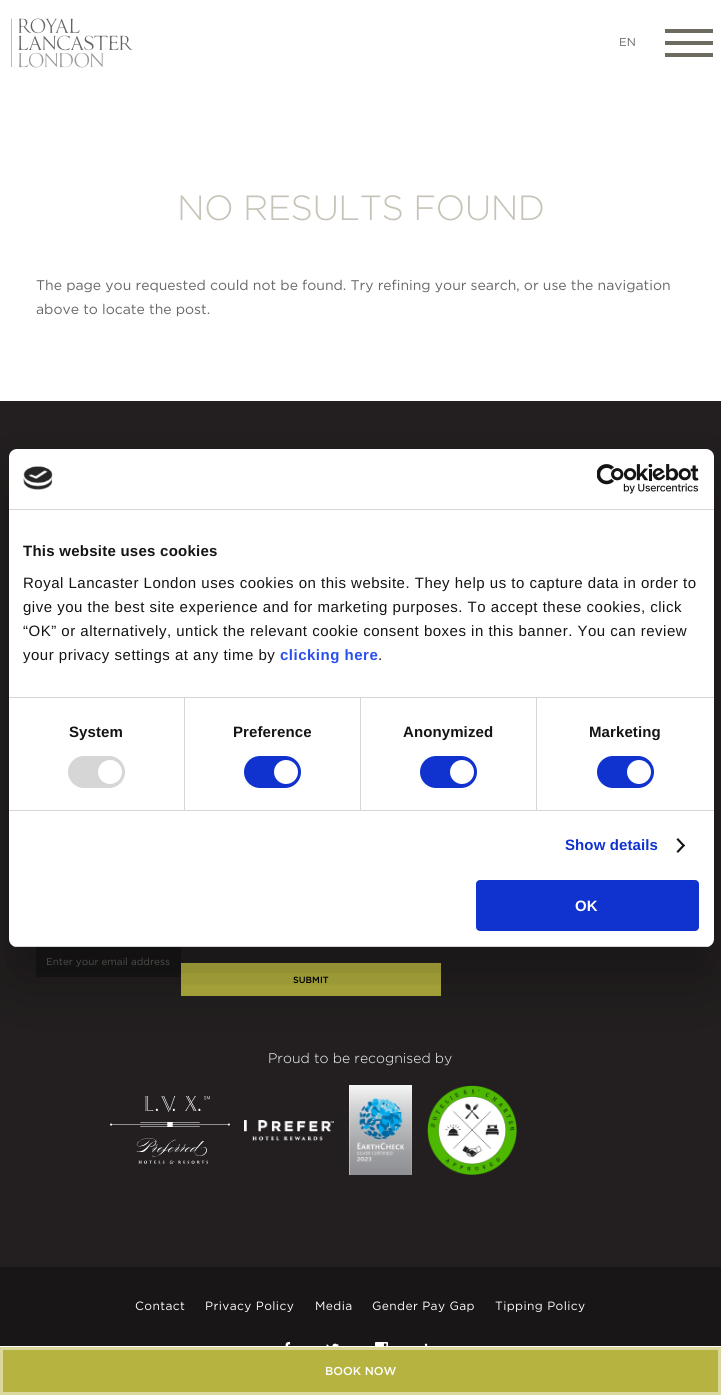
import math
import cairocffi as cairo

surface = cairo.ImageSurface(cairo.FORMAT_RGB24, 721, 1395)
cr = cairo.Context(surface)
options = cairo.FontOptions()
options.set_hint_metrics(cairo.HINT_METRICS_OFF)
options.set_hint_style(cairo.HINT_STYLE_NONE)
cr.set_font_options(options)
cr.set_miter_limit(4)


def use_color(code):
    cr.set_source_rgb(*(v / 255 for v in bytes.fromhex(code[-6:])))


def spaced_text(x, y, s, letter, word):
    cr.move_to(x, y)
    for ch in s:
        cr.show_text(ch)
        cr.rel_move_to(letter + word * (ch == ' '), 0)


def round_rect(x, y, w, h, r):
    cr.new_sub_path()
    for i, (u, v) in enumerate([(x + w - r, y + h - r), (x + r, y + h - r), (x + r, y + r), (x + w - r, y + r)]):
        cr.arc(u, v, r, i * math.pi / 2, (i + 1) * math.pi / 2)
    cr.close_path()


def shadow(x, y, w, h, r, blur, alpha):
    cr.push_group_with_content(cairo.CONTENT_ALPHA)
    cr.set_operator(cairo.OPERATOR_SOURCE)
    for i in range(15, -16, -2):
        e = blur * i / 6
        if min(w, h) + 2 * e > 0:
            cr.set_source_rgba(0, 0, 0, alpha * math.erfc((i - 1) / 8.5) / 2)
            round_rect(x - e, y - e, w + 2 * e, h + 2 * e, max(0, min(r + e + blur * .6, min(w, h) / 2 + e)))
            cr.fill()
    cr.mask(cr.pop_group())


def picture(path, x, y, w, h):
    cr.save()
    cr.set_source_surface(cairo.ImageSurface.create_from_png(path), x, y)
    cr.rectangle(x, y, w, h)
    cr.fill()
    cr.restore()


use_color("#ffffff")
cr.paint()
picture("img1.png", 11, 18, 122, 50)
cr.select_font_face("Gotham")
cr.set_font_size(11.5)
use_color("#666666")
cr.move_to(619, 46)
cr.show_text("EN")
use_color("#6d6a60")
cr.rectangle(665, 29, 48, 4)
cr.fill()
cr.rectangle(665, 41, 48, 4)
cr.fill()
cr.rectangle(665, 53, 48, 4)
cr.fill()
cr.select_font_face("Gotham Light")
cr.set_font_size(35)
use_color("#c7c3b8")
spaced_text(177, 220, "NO RESULTS FOUND", -0.6, 0)
cr.select_font_face("Gotham")
cr.set_font_size(14)
use_color("#666666")
cr.move_to(36, 290)
cr.show_text("The page you requested could not be found. Try refining your search, or use the navigation")
cr.move_to(36, 314)
cr.show_text("above to locate the post.")
use_color("#231f20")
cr.rectangle(0, 401, 721, 866)
cr.fill()
use_color("#181617")
cr.rectangle(36, 947, 145, 30)
cr.fill()
cr.set_font_size(10)
use_color("#64615a")
cr.move_to(46, 965)
cr.show_text("Enter your email address")
use_color("#b6b340")
cr.rectangle(181, 963, 260, 33)
cr.fill()
cr.select_font_face("Gotham Medium")
cr.set_font_size(9)
use_color("#000000")
cr.move_to(293, 983)
cr.show_text("SUBMIT")
cr.select_font_face("Gotham Light")
cr.set_font_size(14)
use_color("#ffffff")
cr.move_to(268, 1063)
cr.show_text("Proud to be recognised by")
picture("img2.png", 110, 1096, 120, 68)
picture("img3.png", 244, 1120, 90, 21)
picture("img4.png", 349, 1085, 63, 90)
picture("img5.png", 427, 1085, 90, 90)
use_color("#181617")
cr.rectangle(0, 1267, 721, 79)
cr.fill()
cr.select_font_face("Gotham")
cr.set_font_size(12)
use_color("#ffffff")
spaced_text(135, 1310, "Contact", 0.4, 0)
spaced_text(205, 1310, "Privacy Policy", 0.4, 0)
spaced_text(315, 1310, "Media", 0.4, 0)
spaced_text(372, 1310, "Gender Pay Gap", 0.4, 0)
spaced_text(495, 1310, "Tipping Policy", 0.4, 0)
picture("img6.png", 285, 1342, 5, 4)
picture("img7.png", 326, 1343, 13, 3)
picture("img8.png", 375, 1342, 13, 4)
picture("img9.png", 424, 1343, 4, 3)
use_color("#000000")
shadow(9, 481, 705, 498, 8, 34, 0.3)
use_color("#ffffff")
round_rect(9, 449, 705, 498, 8)
cr.fill()
use_color("#d6d6d6")
cr.rectangle(9, 509, 705, 1)
cr.fill()
picture("img10.png", 23, 466, 30, 24)
picture("img11.png", 597, 464, 102, 30)
cr.rectangle(9, 697, 705, 1)
cr.fill()
cr.select_font_face("Liberation Sans", cairo.FONT_SLANT_NORMAL, cairo.FONT_WEIGHT_BOLD)
cr.set_font_size(15)
use_color("#141414")
spaced_text(23, 556, "This website uses cookies", 0.25, 0)
cr.select_font_face("Liberation Sans")
spaced_text(23, 588, "Royal Lancaster London uses cookies on this website. They help us to capture data in order to", 0.5, 0)
spaced_text(23, 612, "give you the best site experience and for marketing purposes. To accept these cookies, click", 0.5, 0)
spaced_text(23, 636, "“OK” or alternatively, untick the relevant cookie consent boxes in this banner. You can review", 0.5, 0)
spaced_text(23, 660, "your privacy settings at any time by", 0.5, 0)
cr.select_font_face("Liberation Sans", cairo.FONT_SLANT_NORMAL, cairo.FONT_WEIGHT_BOLD)
use_color("#2a4eef")
spaced_text(280, 660, "clicking here", 0.5, 0)
cr.select_font_face("Liberation Sans")
use_color("#141414")
spaced_text(378, 660, ".", 0.5, 0)
use_color("#d6d6d6")
cr.rectangle(9, 810, 705, 1)
cr.fill()
cr.rectangle(184, 698, 1, 112)
cr.fill()
cr.select_font_face("Liberation Sans", cairo.FONT_SLANT_NORMAL, cairo.FONT_WEIGHT_BOLD)
use_color("#141414")
spaced_text(69, 737, "System", 0.1, 0)
use_color("#d6d6d6")
round_rect(68, 756, 57, 32, 16)
cr.fill()
use_color("#ffffff")
cr.arc(110, 772, 12, 0, 2 * math.pi)
cr.fill()
use_color("#d6d6d6")
cr.rectangle(360, 698, 1, 112)
cr.fill()
use_color("#141414")
spaced_text(233, 737, "Preference", 0.1, 0)
use_color("#1032cf")
round_rect(244, 756, 57, 32, 16)
cr.fill()
use_color("#ffffff")
cr.arc(286, 772, 12, 0, 2 * math.pi)
cr.fill()
use_color("#d6d6d6")
cr.rectangle(536, 698, 1, 112)
cr.fill()
use_color("#141414")
spaced_text(403, 737, "Anonymized", 0.1, 0)
use_color("#1032cf")
round_rect(420, 756, 57, 32, 16)
cr.fill()
use_color("#ffffff")
cr.arc(462, 772, 12, 0, 2 * math.pi)
cr.fill()
use_color("#141414")
spaced_text(589, 737, "Marketing", 0.1, 0)
use_color("#1032cf")
round_rect(597, 756, 57, 32, 16)
cr.fill()
use_color("#ffffff")
cr.arc(639, 772, 12, 0, 2 * math.pi)
cr.fill()
use_color("#1032cf")
spaced_text(565, 850, "Show details", 0.1, 0)
use_color("#141414")
cr.new_path()
cr.move_to(678, 838)
cr.line_to(685, 845.5)
cr.line_to(683.5, 847)
cr.line_to(676.5, 839.5)
cr.close_path()
cr.fill()
cr.new_path()
cr.move_to(683.5, 844)
cr.line_to(685, 845.5)
cr.line_to(678, 853)
cr.line_to(676.5, 851.5)
cr.close_path()
cr.fill()
cr.save()
round_rect(9, 449, 705, 498, 8)
cr.clip()
use_color("#d6d6d6")
cr.rectangle(9, 946, 705, 1)
cr.fill()
cr.restore()
use_color("#1032cf")
round_rect(477, 881, 221, 49, 3)
cr.fill_preserve()
cr.stroke()
use_color("#ffffff")
cr.move_to(575, 911)
cr.show_text("OK")
use_color("#b6b340")
cr.rectangle(1.5, 1348.5, 718, 45)
cr.fill_preserve()
use_color("#dad89f")
cr.set_line_width(3)
cr.stroke()
cr.select_font_face("Gotham Medium")
cr.set_font_size(11.5)
use_color("#ffffff")
cr.move_to(325, 1375)
cr.show_text("BOOK NOW")
surface.write_to_png("result.png")
